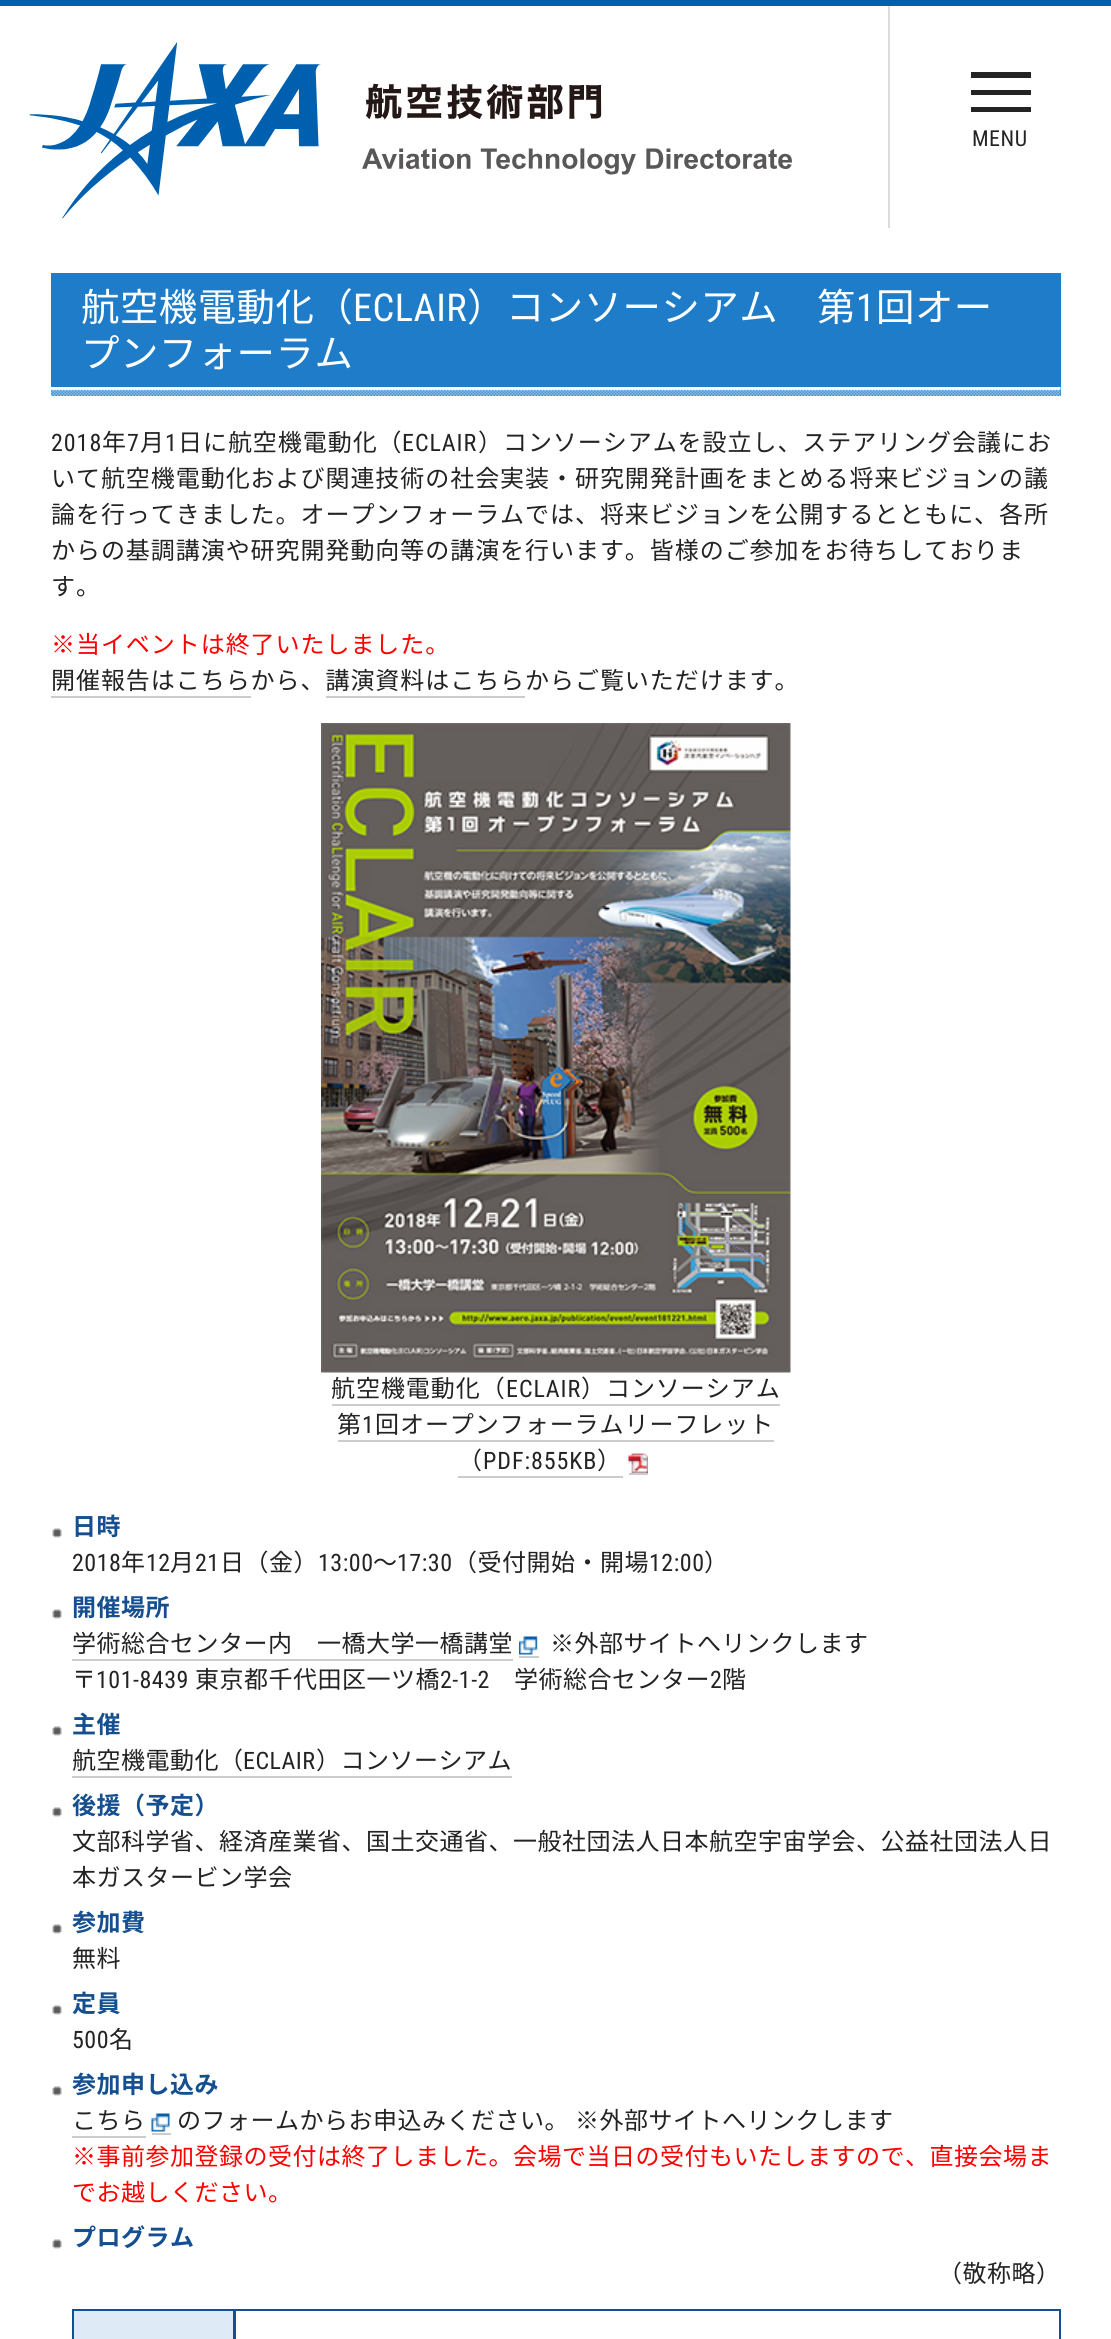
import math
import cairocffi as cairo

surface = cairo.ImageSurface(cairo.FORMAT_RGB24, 1111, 2339)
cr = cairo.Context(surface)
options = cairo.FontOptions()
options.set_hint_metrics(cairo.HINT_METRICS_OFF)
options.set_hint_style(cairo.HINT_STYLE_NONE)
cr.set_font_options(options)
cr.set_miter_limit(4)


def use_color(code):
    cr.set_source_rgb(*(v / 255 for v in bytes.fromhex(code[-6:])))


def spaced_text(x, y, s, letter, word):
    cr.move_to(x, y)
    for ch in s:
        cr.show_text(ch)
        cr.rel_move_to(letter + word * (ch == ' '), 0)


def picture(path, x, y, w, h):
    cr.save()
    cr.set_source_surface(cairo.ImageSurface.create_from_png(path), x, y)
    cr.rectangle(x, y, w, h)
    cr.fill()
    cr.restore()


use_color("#ffffff")
cr.paint()
use_color("#005faf")
cr.rectangle(0, 0, 1111, 6)
cr.fill()
use_color("#dcdcdc")
cr.rectangle(888, 6, 2, 222)
cr.fill()
picture("img1.png", 29, 42, 763, 177)
use_color("#232323")
cr.rectangle(971, 72, 60, 6)
cr.fill()
cr.rectangle(971, 90, 60, 5)
cr.fill()
cr.rectangle(971, 107, 60, 5)
cr.fill()
cr.select_font_face("Roboto Condensed")
cr.set_font_size(22)
spaced_text(972, 146, "MENU", 0.5, 0)
use_color("#1f7cc8")
cr.rectangle(51, 273, 1010, 123)
cr.fill()
picture("img2.png", 51, 387, 1010, 9)
cr.select_font_face("Noto Sans JP")
cr.set_font_size(38.4)
use_color("#ffffff")
spaced_text(81, 321, "航空機電動化（", 0.5, 0)
cr.select_font_face("Roboto Condensed")
spaced_text(353, 321, "ECLAIR", 0.5, 0)
cr.select_font_face("Noto Sans JP")
spaced_text(467, 321, "）コンソーシアム　第", 0.5, 0)
cr.select_font_face("Roboto Condensed")
spaced_text(856, 321, "1", 0.5, 0)
cr.select_font_face("Noto Sans JP")
spaced_text(876, 321, "回オー", 0.5, 0)
spaced_text(81, 367, "プンフォーラム", 0.5, 0)
cr.select_font_face("Roboto Condensed")
cr.set_font_size(24)
use_color("#232323")
spaced_text(51, 451, "2018", 0.95, 0)
cr.select_font_face("Noto Sans JP")
spaced_text(102, 451, "年", 0.95, 0)
cr.select_font_face("Roboto Condensed")
spaced_text(127, 451, "7", 0.95, 0)
cr.select_font_face("Noto Sans JP")
spaced_text(140, 451, "月", 0.95, 0)
cr.select_font_face("Roboto Condensed")
spaced_text(165, 451, "1", 0.95, 0)
cr.select_font_face("Noto Sans JP")
spaced_text(178, 451, "日に航空機電動化（", 0.95, 0)
cr.select_font_face("Roboto Condensed")
spaced_text(402, 451, "ECLAIR", 0.95, 0)
cr.select_font_face("Noto Sans JP")
spaced_text(478, 451, "）コンソーシアムを設立し、ステアリング会議にお", 0.95, 0)
spaced_text(51, 487, "いて航空機電動化および関連技術の社会実装・研究開発計画をまとめる将来ビジョンの議", 0.95, 0)
spaced_text(51, 523, "論を行ってきました。オープンフォーラムでは、将来ビジョンを公開するとともに、各所", 0.95, 0)
spaced_text(51, 559, "からの基調講演や研究開発動向等の講演を行います。皆様のご参加をお待ちしておりま", 0.95, 0)
spaced_text(51, 595, "す。", 0.95, 0)
use_color("#ff0000")
spaced_text(51, 653, "※当イベントは終了いたしました。", 0.95, 0)
use_color("#232323")
spaced_text(51, 689, "開催報告はこちらから、講演資料はこちらからご覧いただけます。", 0.95, 0)
use_color("#cccccc")
cr.rectangle(51, 696, 200, 2)
cr.fill()
cr.rectangle(326, 696, 199, 2)
cr.fill()
picture("img3.png", 321, 723, 470, 650)
cr.rectangle(332, 1404, 448, 2)
cr.fill()
cr.rectangle(338, 1440, 436, 2)
cr.fill()
cr.rectangle(458, 1476, 165, 2)
cr.fill()
cr.rectangle(629, 1473, 19, 2)
cr.fill()
use_color("#232323")
spaced_text(331, 1397, "航空機電動化（", 0.95, 0)
cr.select_font_face("Roboto Condensed")
spaced_text(506, 1397, "ECLAIR", 0.95, 0)
cr.select_font_face("Noto Sans JP")
spaced_text(581, 1397, "）コンソーシアム", 0.95, 0)
spaced_text(337, 1433, "第", 0.95, 0)
cr.select_font_face("Roboto Condensed")
spaced_text(362, 1433, "1", 0.95, 0)
cr.select_font_face("Noto Sans JP")
spaced_text(375, 1433, "回オープンフォーラムリーフレット", 0.95, 0)
spaced_text(458, 1469, "（", 0.95, 0)
cr.select_font_face("Roboto Condensed")
spaced_text(483, 1469, "PDF:855KB", 0.95, 0)
cr.select_font_face("Noto Sans JP")
spaced_text(597, 1469, "）", 0.95, 0)
picture("img4.png", 628, 1453, 20, 20)
picture("img5.png", 52, 1528, 10, 10)
cr.select_font_face("Noto Sans JP", cairo.FONT_SLANT_NORMAL, cairo.FONT_WEIGHT_BOLD)
use_color("#154f90")
spaced_text(72, 1535, "日時", 0.5, 0)
cr.select_font_face("Roboto Condensed")
use_color("#232323")
spaced_text(72, 1571, "2018", 0.5, 0)
cr.select_font_face("Noto Sans JP")
spaced_text(121, 1571, "年", 0.5, 0)
cr.select_font_face("Roboto Condensed")
spaced_text(146, 1571, "12", 0.5, 0)
cr.select_font_face("Noto Sans JP")
spaced_text(170, 1571, "月", 0.5, 0)
cr.select_font_face("Roboto Condensed")
spaced_text(195, 1571, "21", 0.5, 0)
cr.select_font_face("Noto Sans JP")
spaced_text(220, 1571, "日（金）", 0.5, 0)
cr.select_font_face("Roboto Condensed")
spaced_text(318, 1571, "13:00", 0.5, 0)
cr.select_font_face("Noto Sans JP")
spaced_text(373, 1571, "～", 0.5, 0)
cr.select_font_face("Roboto Condensed")
spaced_text(397, 1571, "17:30", 0.5, 0)
cr.select_font_face("Noto Sans JP")
spaced_text(453, 1571, "（受付開始・開場", 0.5, 0)
cr.select_font_face("Roboto Condensed")
spaced_text(649, 1571, "12:00", 0.5, 0)
cr.select_font_face("Noto Sans JP")
spaced_text(704, 1571, "）", 0.5, 0)
picture("img5.png", 52, 1609, 10, 10)
cr.select_font_face("Noto Sans JP", cairo.FONT_SLANT_NORMAL, cairo.FONT_WEIGHT_BOLD)
use_color("#154f90")
spaced_text(72, 1616, "開催場所", 0.5, 0)
use_color("#cccccc")
cr.rectangle(72, 1659, 441, 2)
cr.fill()
cr.rectangle(519, 1656, 20, 2)
cr.fill()
cr.select_font_face("Noto Sans JP")
use_color("#232323")
spaced_text(72, 1652, "学術総合センター内　一橋大学一橋講堂", 0.5, 0)
picture("img6.png", 519, 1636, 19, 19)
spaced_text(550, 1652, "※外部サイトへリンクします", 0.5, 0)
spaced_text(72, 1688, "〒", 0.5, 0)
cr.select_font_face("Roboto Condensed")
spaced_text(96, 1688, "101-8439", 0.5, 0)
cr.select_font_face("Noto Sans JP")
spaced_text(195, 1688, "東京都千代田区一ツ橋", 0.5, 0)
cr.select_font_face("Roboto Condensed")
spaced_text(440, 1688, "2-1-2", 0.5, 0)
cr.select_font_face("Noto Sans JP")
spaced_text(514, 1688, "学術総合センター", 0.5, 0)
cr.select_font_face("Roboto Condensed")
spaced_text(710, 1688, "2", 0.5, 0)
cr.select_font_face("Noto Sans JP")
spaced_text(722, 1688, "階", 0.5, 0)
picture("img5.png", 52, 1726, 10, 10)
cr.select_font_face("Noto Sans JP", cairo.FONT_SLANT_NORMAL, cairo.FONT_WEIGHT_BOLD)
use_color("#154f90")
spaced_text(72, 1733, "主催", 0.5, 0)
cr.select_font_face("Noto Sans JP")
use_color("#232323")
spaced_text(72, 1769, "航空機電動化（", 0.5, 0)
cr.select_font_face("Roboto Condensed")
spaced_text(243, 1769, "ECLAIR", 0.5, 0)
use_color("#cccccc")
cr.rectangle(72, 1776, 440, 2)
cr.fill()
cr.select_font_face("Noto Sans JP")
use_color("#232323")
spaced_text(316, 1769, "）コンソーシアム", 0.5, 0)
picture("img5.png", 52, 1807, 10, 10)
cr.select_font_face("Noto Sans JP", cairo.FONT_SLANT_NORMAL, cairo.FONT_WEIGHT_BOLD)
use_color("#154f90")
spaced_text(72, 1814, "後援（予定）", 0.5, 0)
cr.select_font_face("Noto Sans JP")
use_color("#232323")
spaced_text(72, 1850, "文部科学省、経済産業省、国土交通省、⼀般社団法⼈日本航空宇宙学会、公益社団法人日", 0.5, 0)
spaced_text(72, 1886, "本ガスタービン学会", 0.5, 0)
picture("img5.png", 52, 1924, 10, 10)
cr.select_font_face("Noto Sans JP", cairo.FONT_SLANT_NORMAL, cairo.FONT_WEIGHT_BOLD)
use_color("#154f90")
spaced_text(72, 1931, "参加費", 0.5, 0)
cr.select_font_face("Noto Sans JP")
use_color("#232323")
spaced_text(72, 1967, "無料", 0.5, 0)
picture("img5.png", 52, 2005, 10, 10)
cr.select_font_face("Noto Sans JP", cairo.FONT_SLANT_NORMAL, cairo.FONT_WEIGHT_BOLD)
use_color("#154f90")
spaced_text(72, 2012, "定員", 0.5, 0)
cr.select_font_face("Roboto Condensed")
use_color("#232323")
spaced_text(72, 2048, "500", 0.5, 0)
cr.select_font_face("Noto Sans JP")
spaced_text(109, 2048, "名", 0.5, 0)
picture("img5.png", 52, 2086, 10, 10)
cr.select_font_face("Noto Sans JP", cairo.FONT_SLANT_NORMAL, cairo.FONT_WEIGHT_BOLD)
use_color("#154f90")
spaced_text(72, 2093, "参加申し込み", 0.5, 0)
use_color("#cccccc")
cr.rectangle(72, 2136, 74, 2)
cr.fill()
cr.rectangle(152, 2133, 19, 2)
cr.fill()
cr.select_font_face("Noto Sans JP")
use_color("#232323")
spaced_text(72, 2129, "こちら", 0.5, 0)
picture("img7.png", 151, 2113, 19, 19)
spaced_text(177, 2129, "のフォームからお申込みください。 ※外部サイトへリンクします", 0.5, 0)
use_color("#ff0000")
spaced_text(72, 2165, "※事前参加登録の受付は終了しました。会場で当日の受付もいたしますので、直接会場ま", 0.5, 0)
spaced_text(72, 2201, "でお越しください。", 0.5, 0)
picture("img5.png", 52, 2239, 10, 10)
cr.select_font_face("Noto Sans JP", cairo.FONT_SLANT_NORMAL, cairo.FONT_WEIGHT_BOLD)
use_color("#154f90")
spaced_text(72, 2246, "プログラム", 0.5, 0)
cr.select_font_face("Noto Sans JP")
use_color("#232323")
spaced_text(938, 2282, "（敬称略）", 0.5, 0)
use_color("#deebf7")
cr.rectangle(74, 2311, 159, 28)
cr.fill()
use_color("#154f90")
cr.rectangle(72, 2309, 989, 2)
cr.fill()
cr.rectangle(233, 2309, 3, 30)
cr.fill()
cr.rectangle(72, 2309, 2, 30)
cr.fill()
cr.rectangle(1059, 2309, 2, 30)
cr.fill()
surface.write_to_png("result.png")
